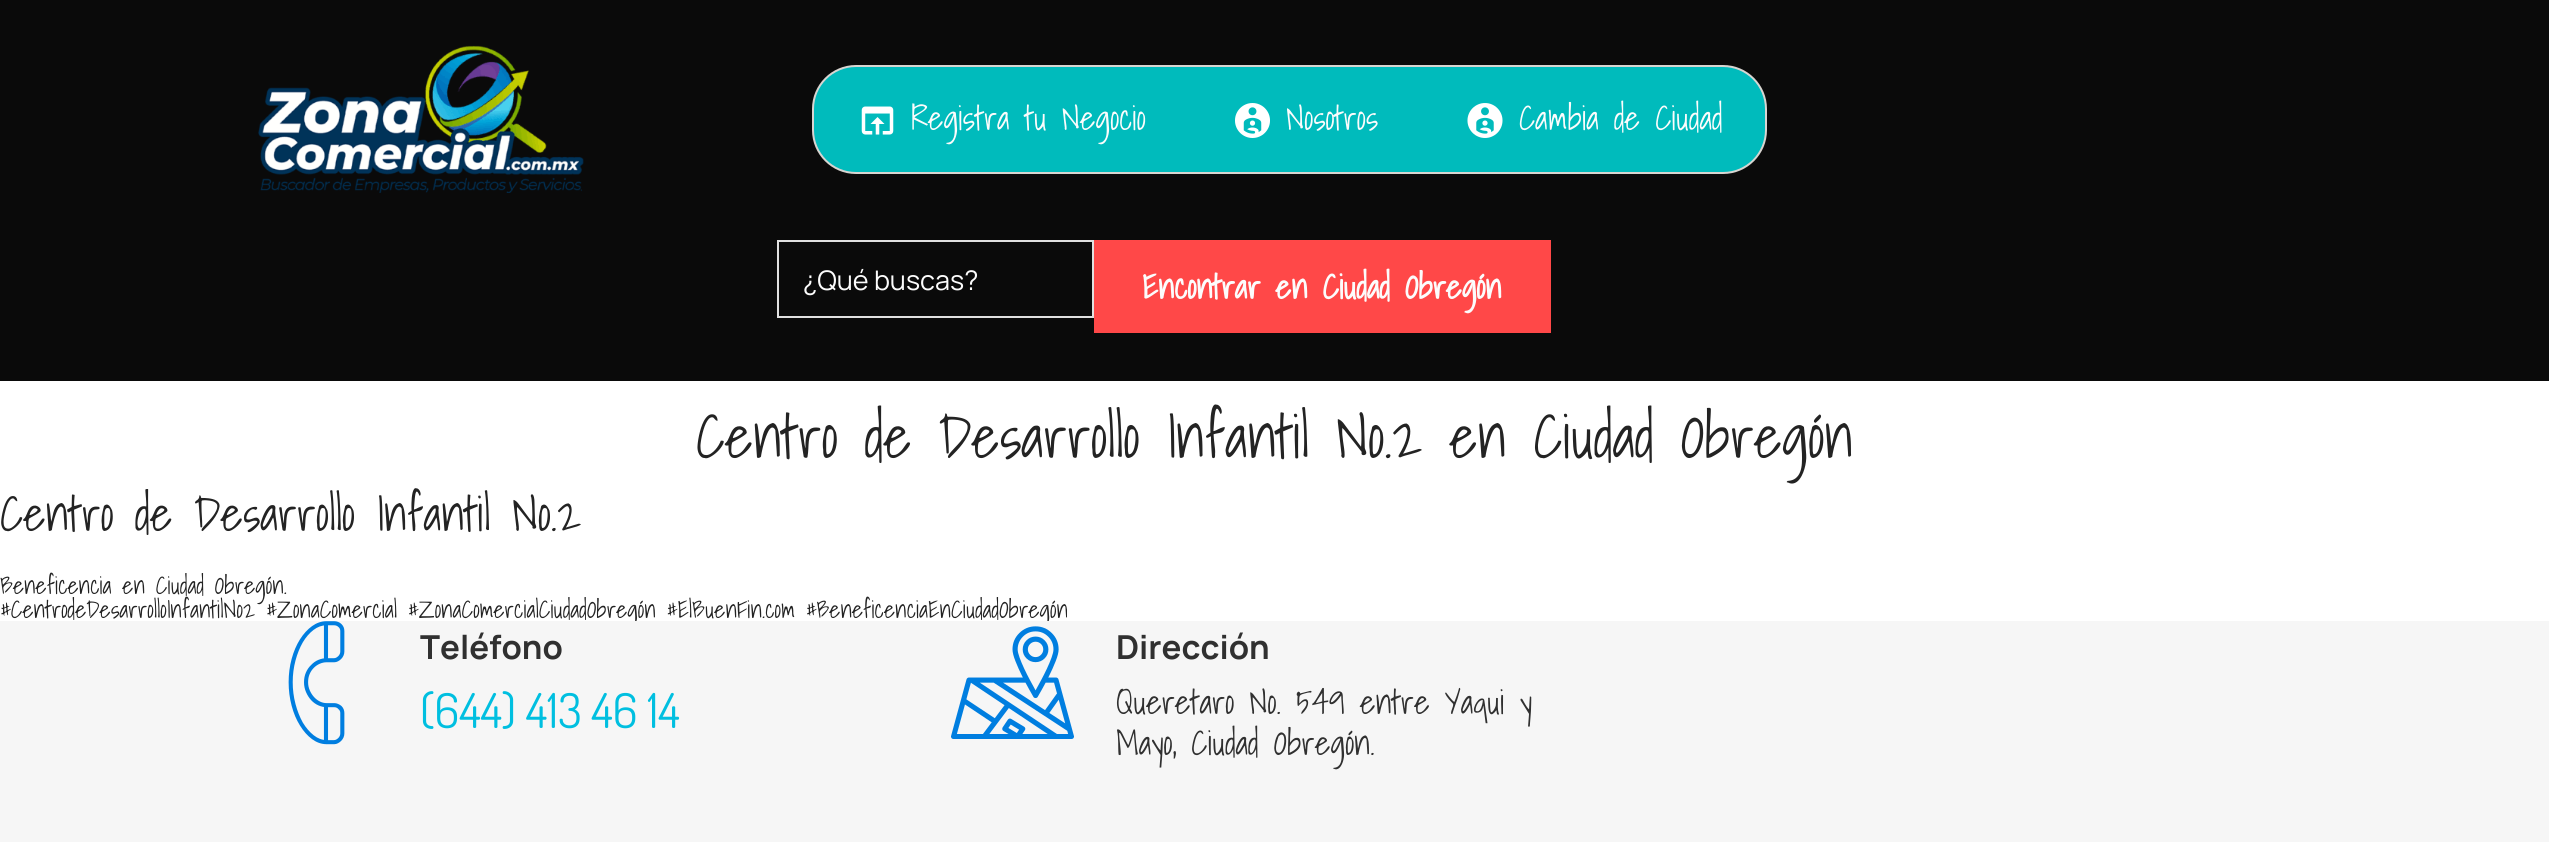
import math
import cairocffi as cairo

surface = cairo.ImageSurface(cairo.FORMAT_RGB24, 2549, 856)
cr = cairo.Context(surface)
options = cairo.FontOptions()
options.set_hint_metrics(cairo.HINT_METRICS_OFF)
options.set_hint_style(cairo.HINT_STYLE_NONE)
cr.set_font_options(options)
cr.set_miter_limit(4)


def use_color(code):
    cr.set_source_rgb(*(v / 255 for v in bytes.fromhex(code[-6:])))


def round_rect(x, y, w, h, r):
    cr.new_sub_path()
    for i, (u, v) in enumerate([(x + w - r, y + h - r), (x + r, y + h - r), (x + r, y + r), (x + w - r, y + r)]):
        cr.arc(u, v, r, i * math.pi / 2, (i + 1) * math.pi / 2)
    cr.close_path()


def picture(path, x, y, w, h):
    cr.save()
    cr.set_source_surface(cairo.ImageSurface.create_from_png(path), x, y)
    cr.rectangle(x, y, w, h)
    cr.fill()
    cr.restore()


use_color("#ffffff")
cr.paint()
use_color("#0a0a0a")
cr.rectangle(0, 0, 2549, 381)
cr.fill()
picture("img1.png", 258, 45, 326, 148)
use_color("#00bbbc")
round_rect(813, 66, 953, 107, 43)
cr.fill_preserve()
use_color("#d8d5d1")
cr.stroke()
picture("img2.png", 861, 106, 33, 29)
cr.select_font_face("Shadows Into Light Light")
cr.set_font_size(33.6)
use_color("#fcfcfc")
cr.move_to(911, 130)
cr.show_text("Registra tu Negocio")
picture("img3.png", 1235, 103, 35, 35)
cr.move_to(1286, 130)
cr.show_text("Nosotros")
picture("img4.png", 1467, 103, 36, 35)
cr.move_to(1519, 130)
cr.show_text("Cambia de Ciudad")
cr.rectangle(778, 241, 315, 76)
use_color("#e0e0e0")
cr.stroke()
cr.select_font_face("Manrope")
cr.set_font_size(27)
use_color("#fcfcfc")
cr.move_to(803, 290)
cr.show_text("¿Qué buscas?")
use_color("#ff4848")
cr.rectangle(1094, 240, 457, 93)
cr.fill()
cr.select_font_face("Shadows Into Light", cairo.FONT_SLANT_NORMAL, cairo.FONT_WEIGHT_BOLD)
cr.set_font_size(33.6)
use_color("#fcfcfc")
cr.move_to(1142, 299)
cr.show_text("Encontrar en Ciudad Obregón")
cr.select_font_face("Shadows Into Light Light")
cr.set_font_size(60)
use_color("#232323")
cr.move_to(696, 458)
cr.show_text("Centro de Desarrollo Infantil No.2 en Ciudad Obregón")
cr.set_font_size(48)
cr.move_to(0, 531)
cr.show_text("Centro de Desarrollo Infantil No.2")
cr.set_font_size(24)
cr.move_to(0, 594)
cr.show_text("Beneficencia en Ciudad Obregón.")
cr.move_to(0, 618)
cr.show_text("#CentrodeDesarrolloInfantilNo2 #ZonaComercial #ZonaComercialCiudadObregón #ElBuenFin.com #BeneficenciaEnCiudadObregón")
use_color("#f6f6f6")
cr.rectangle(0, 621, 2549, 221)
cr.fill()
picture("img5.png", 288, 621, 57, 124)
cr.select_font_face("Manrope", cairo.FONT_SLANT_NORMAL, cairo.FONT_WEIGHT_BOLD)
cr.set_font_size(33)
use_color("#303030")
cr.move_to(420, 659)
cr.show_text("Teléfono")
cr.select_font_face("Dosis")
cr.set_font_size(48)
use_color("#00bfe0")
cr.move_to(420, 728)
cr.show_text("(644) 413 46 14")
picture("img6.png", 951, 626, 123, 113)
cr.select_font_face("Manrope", cairo.FONT_SLANT_NORMAL, cairo.FONT_WEIGHT_BOLD)
cr.set_font_size(33)
use_color("#303030")
cr.move_to(1116, 659)
cr.show_text("Dirección")
cr.select_font_face("Shadows Into Light Light")
cr.set_font_size(33.6)
cr.move_to(1116, 714)
cr.show_text("Queretaro No. 549 entre Yaqui y")
cr.move_to(1116, 755)
cr.show_text("Mayo, Ciudad Obregón.")
surface.write_to_png("result.png")
